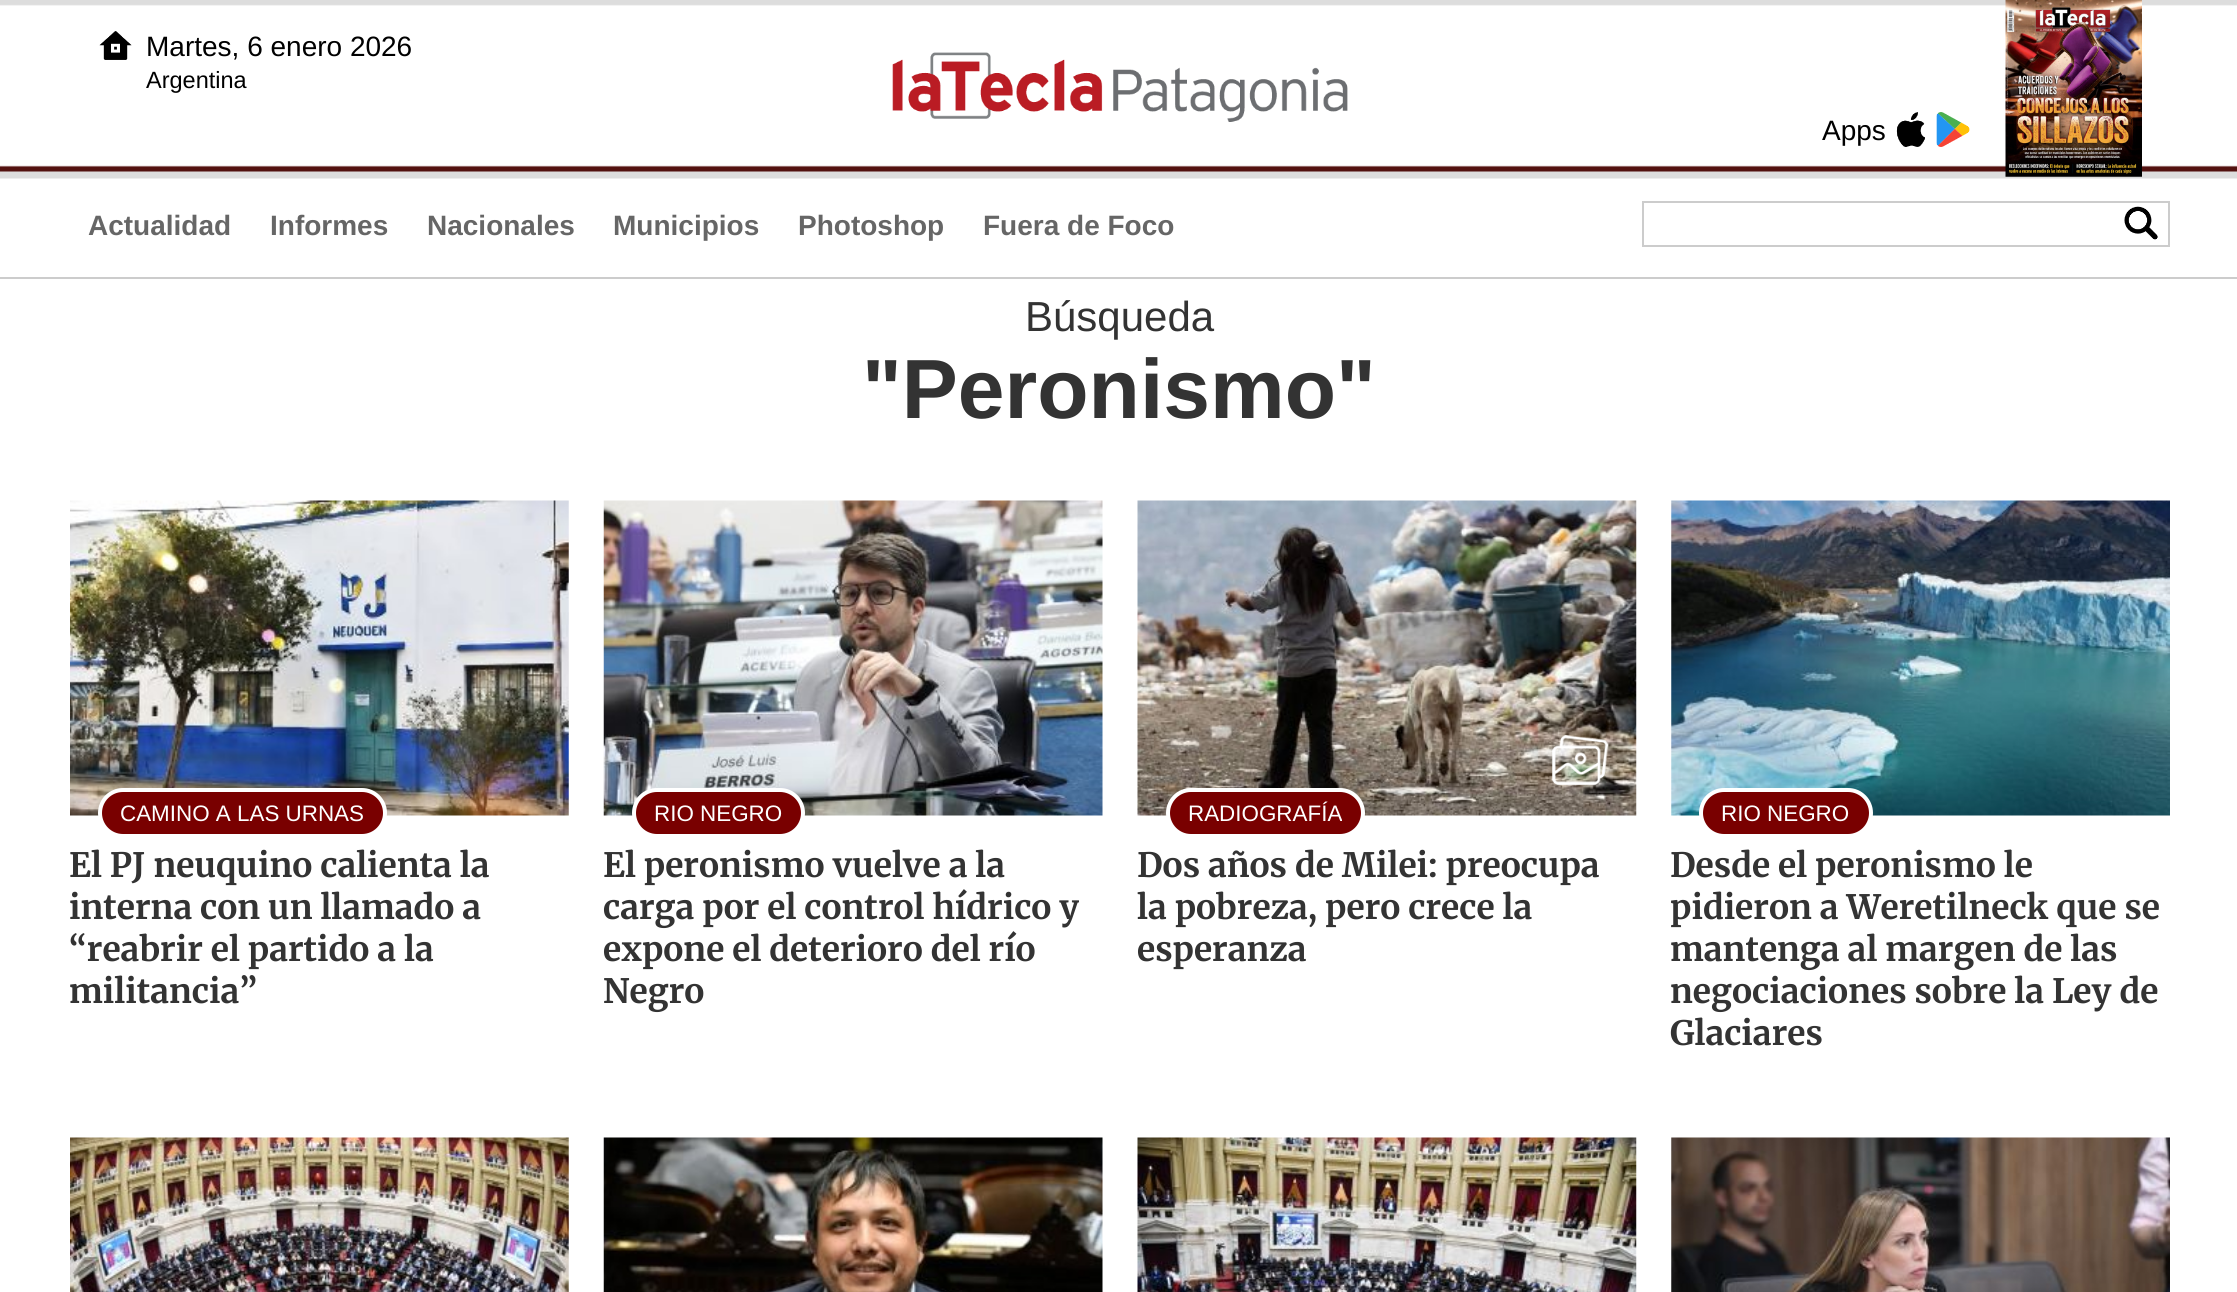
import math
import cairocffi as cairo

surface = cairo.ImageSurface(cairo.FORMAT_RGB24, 2237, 1292)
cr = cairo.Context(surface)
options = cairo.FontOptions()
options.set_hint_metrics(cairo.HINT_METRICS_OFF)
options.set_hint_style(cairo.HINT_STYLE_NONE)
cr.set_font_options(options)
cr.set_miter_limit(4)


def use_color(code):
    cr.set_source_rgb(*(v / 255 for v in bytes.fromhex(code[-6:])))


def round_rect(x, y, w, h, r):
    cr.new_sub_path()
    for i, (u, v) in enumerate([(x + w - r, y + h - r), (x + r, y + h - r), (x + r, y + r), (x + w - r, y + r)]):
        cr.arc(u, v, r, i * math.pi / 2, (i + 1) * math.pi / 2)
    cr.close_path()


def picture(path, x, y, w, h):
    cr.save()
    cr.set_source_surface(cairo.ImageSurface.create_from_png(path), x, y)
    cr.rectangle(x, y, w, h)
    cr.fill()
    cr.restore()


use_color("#ffffff")
cr.paint()
picture("img1.png", 0, 0, 2237, 179)
use_color("#cccccc")
cr.rectangle(0, 277, 2237, 2)
cr.fill()
picture("img2.png", 99, 31, 33, 29)
cr.select_font_face("Liberation Sans")
cr.set_font_size(28)
use_color("#000000")
cr.move_to(146, 56)
cr.show_text("Martes, 6 enero 2026")
cr.set_font_size(23.5)
cr.move_to(146, 88)
cr.show_text("Argentina")
picture("img3.png", 892, 52, 456, 70)
cr.set_font_size(28)
cr.move_to(1822, 140)
cr.show_text("Apps")
picture("img4.png", 1896, 112, 29, 35)
picture("img5.png", 1936, 112, 34, 35)
picture("img6.png", 2005, 0, 137, 177)
cr.select_font_face("Liberation Sans", cairo.FONT_SLANT_NORMAL, cairo.FONT_WEIGHT_BOLD)
use_color("#666666")
cr.move_to(88, 235)
cr.show_text("Actualidad")
cr.move_to(270, 235)
cr.show_text("Informes")
cr.move_to(427, 235)
cr.show_text("Nacionales")
cr.move_to(613, 235)
cr.show_text("Municipios")
cr.move_to(798, 235)
cr.show_text("Photoshop")
cr.move_to(983, 235)
cr.show_text("Fuera de Foco")
cr.rectangle(1643, 202, 526, 44)
use_color("#cccccc")
cr.stroke()
picture("img7.png", 2124, 206, 34, 34)
cr.select_font_face("Liberation Sans")
cr.set_font_size(42)
use_color("#333333")
cr.move_to(1025, 331)
cr.show_text("Búsqueda")
cr.select_font_face("Liberation Sans", cairo.FONT_SLANT_NORMAL, cairo.FONT_WEIGHT_BOLD)
cr.set_font_size(84)
cr.move_to(862, 418)
cr.show_text("\"Peronismo\"")
picture("img8.png", 70, 500, 499, 316)
use_color("#790000")
round_rect(100, 790, 285, 46, 23)
cr.fill_preserve()
use_color("#ffffff")
cr.set_line_width(4)
cr.stroke()
cr.select_font_face("Liberation Sans")
cr.set_font_size(22.4)
cr.move_to(120, 821)
cr.show_text("CAMINO A LAS URNAS")
cr.select_font_face("Merriweather", cairo.FONT_SLANT_NORMAL, cairo.FONT_WEIGHT_BOLD)
cr.set_font_size(33.6)
use_color("#333333")
cr.move_to(69, 877)
cr.show_text("El PJ neuquino calienta la")
cr.move_to(69, 919)
cr.show_text("interna con un llamado a")
cr.move_to(69, 961)
cr.show_text("“reabrir el partido a la")
cr.move_to(69, 1003)
cr.show_text("militancia”")
picture("img9.png", 603, 500, 500, 316)
use_color("#790000")
round_rect(634, 790, 169, 46, 23)
cr.fill_preserve()
use_color("#ffffff")
cr.stroke()
cr.select_font_face("Liberation Sans")
cr.set_font_size(22.4)
cr.move_to(654, 821)
cr.show_text("RIO NEGRO")
cr.select_font_face("Merriweather", cairo.FONT_SLANT_NORMAL, cairo.FONT_WEIGHT_BOLD)
cr.set_font_size(33.6)
use_color("#333333")
cr.move_to(603, 877)
cr.show_text("El peronismo vuelve a la")
cr.move_to(603, 919)
cr.show_text("carga por el control hídrico y")
cr.move_to(603, 961)
cr.show_text("expone el deterioro del río")
cr.move_to(603, 1003)
cr.show_text("Negro")
picture("img10.png", 1137, 500, 500, 316)
picture("img11.png", 1552, 735, 57, 50)
use_color("#790000")
round_rect(1168, 790, 195, 46, 23)
cr.fill_preserve()
use_color("#ffffff")
cr.stroke()
cr.select_font_face("Liberation Sans")
cr.set_font_size(22.4)
cr.move_to(1188, 821)
cr.show_text("RADIOGRAFÍA")
cr.select_font_face("Merriweather", cairo.FONT_SLANT_NORMAL, cairo.FONT_WEIGHT_BOLD)
cr.set_font_size(33.6)
use_color("#333333")
cr.move_to(1137, 877)
cr.show_text("Dos años de Milei: preocupa")
cr.move_to(1137, 919)
cr.show_text("la pobreza, pero crece la")
cr.move_to(1137, 961)
cr.show_text("esperanza")
picture("img12.png", 1671, 500, 499, 316)
use_color("#790000")
round_rect(1701, 790, 170, 46, 23)
cr.fill_preserve()
use_color("#ffffff")
cr.stroke()
cr.select_font_face("Liberation Sans")
cr.set_font_size(22.4)
cr.move_to(1721, 821)
cr.show_text("RIO NEGRO")
cr.select_font_face("Merriweather", cairo.FONT_SLANT_NORMAL, cairo.FONT_WEIGHT_BOLD)
cr.set_font_size(33.6)
use_color("#333333")
cr.move_to(1670, 877)
cr.show_text("Desde el peronismo le")
cr.move_to(1670, 919)
cr.show_text("pidieron a Weretilneck que se")
cr.move_to(1670, 961)
cr.show_text("mantenga al margen de las")
cr.move_to(1670, 1003)
cr.show_text("negociaciones sobre la Ley de")
cr.move_to(1670, 1045)
cr.show_text("Glaciares")
picture("img13.png", 70, 1137, 499, 155)
picture("img14.png", 603, 1137, 500, 155)
picture("img15.png", 1137, 1137, 500, 155)
picture("img16.png", 1671, 1137, 499, 155)
surface.write_to_png("result.png")
